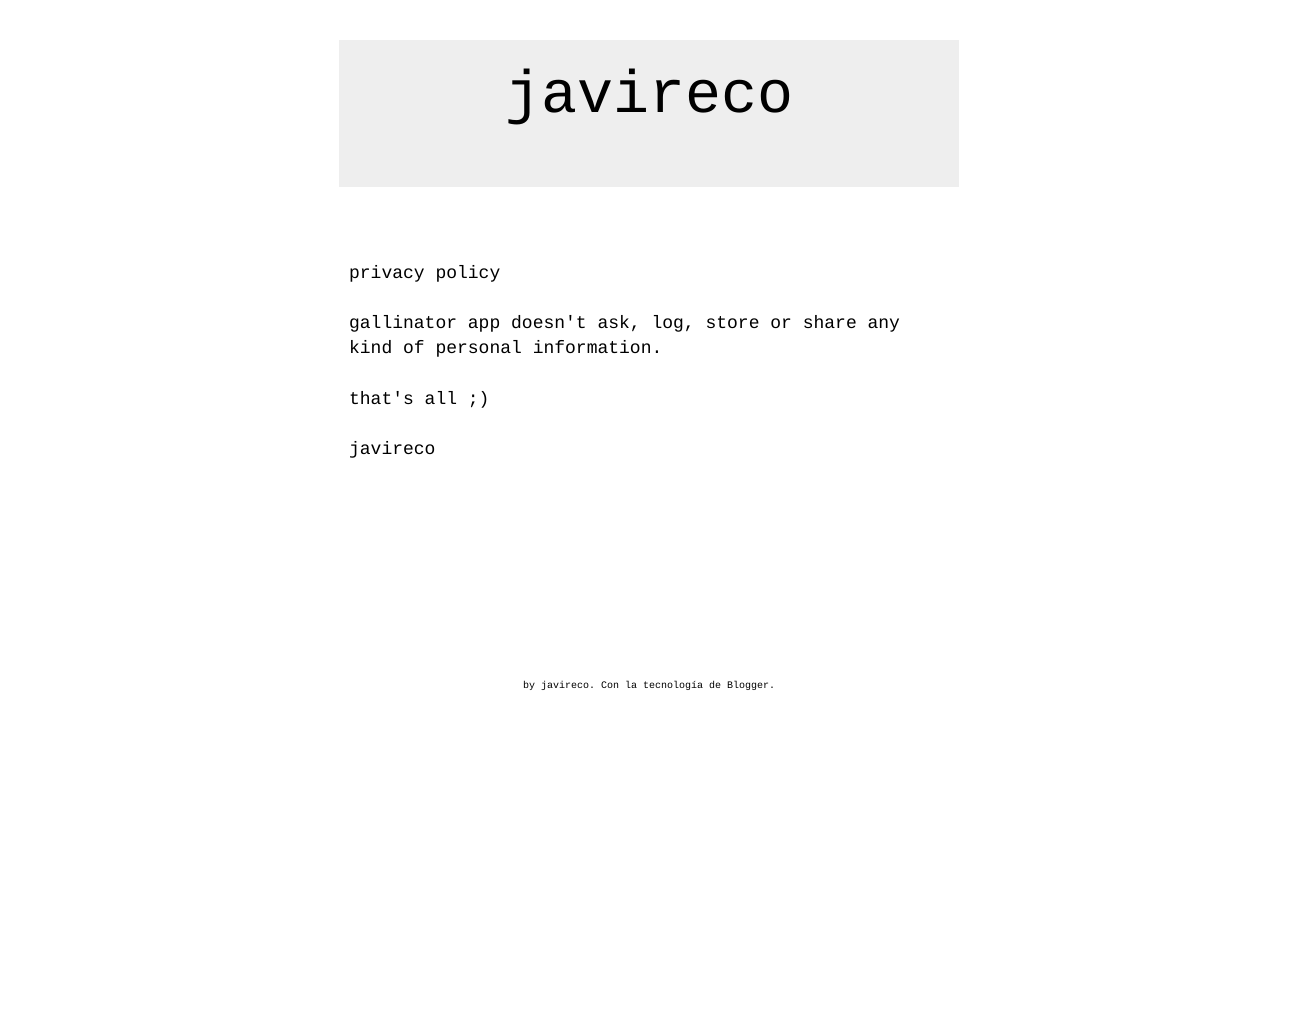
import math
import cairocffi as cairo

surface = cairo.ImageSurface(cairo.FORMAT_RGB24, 1298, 1028)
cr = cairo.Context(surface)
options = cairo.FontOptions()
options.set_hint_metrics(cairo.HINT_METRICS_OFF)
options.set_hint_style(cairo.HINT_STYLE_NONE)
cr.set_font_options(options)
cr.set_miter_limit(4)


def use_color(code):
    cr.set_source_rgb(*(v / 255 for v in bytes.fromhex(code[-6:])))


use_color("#ffffff")
cr.paint()
use_color("#eeeeee")
cr.rectangle(339, 40, 620, 147)
cr.fill()
cr.select_font_face("Liberation Mono")
cr.set_font_size(60)
use_color("#000000")
cr.move_to(505, 112)
cr.show_text("javireco")
cr.set_font_size(18)
cr.move_to(349, 278)
cr.show_text("privacy policy")
cr.move_to(349, 328)
cr.show_text("gallinator app doesn't ask, log, store or share any")
cr.move_to(349, 353)
cr.show_text("kind of personal information.")
cr.move_to(349, 404)
cr.show_text("that's all ;)")
cr.move_to(349, 454)
cr.show_text("javireco")
cr.set_font_size(10)
cr.move_to(523, 688)
cr.show_text("by javireco. Con la tecnología de Blogger.")
surface.write_to_png("result.png")
